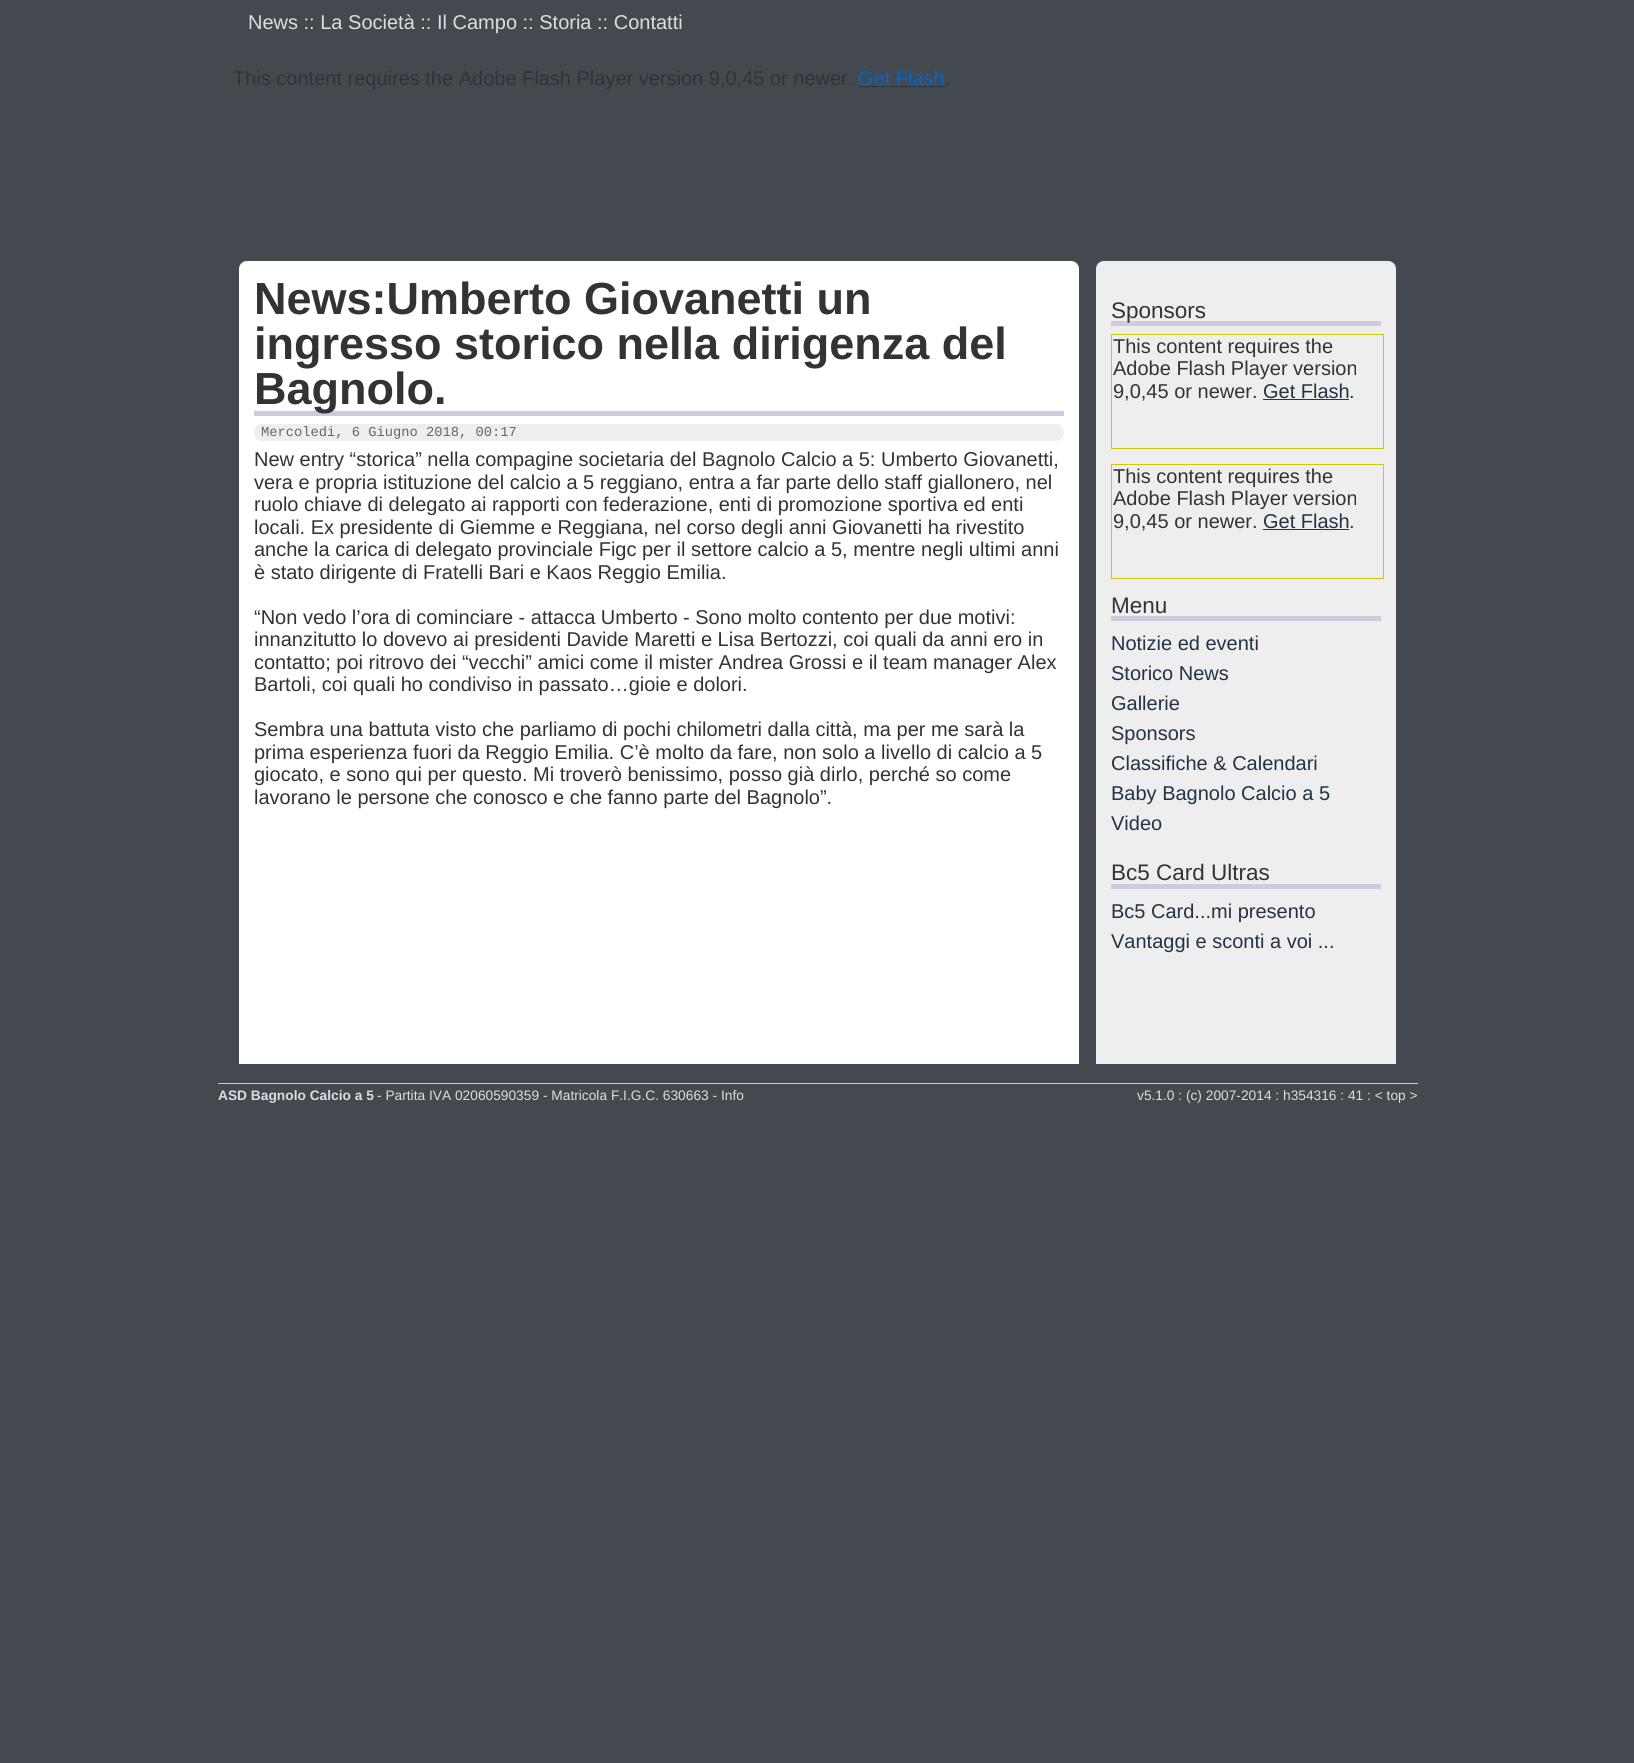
import math
import cairocffi as cairo

surface = cairo.ImageSurface(cairo.FORMAT_RGB24, 1634, 1763)
cr = cairo.Context(surface)
options = cairo.FontOptions()
options.set_hint_metrics(cairo.HINT_METRICS_OFF)
options.set_hint_style(cairo.HINT_STYLE_NONE)
cr.set_font_options(options)
cr.set_miter_limit(4)


def use_color(code):
    cr.set_source_rgb(*(v / 255 for v in bytes.fromhex(code[-6:])))


def round_rect(x, y, w, h, r):
    cr.new_sub_path()
    for i, (u, v) in enumerate([(x + w - r, y + h - r), (x + r, y + h - r), (x + r, y + r), (x + w - r, y + r)]):
        cr.arc(u, v, r, i * math.pi / 2, (i + 1) * math.pi / 2)
    cr.close_path()


use_color("#44484f")
cr.paint()
cr.select_font_face("Liberation Sans")
cr.set_font_size(20)
use_color("#dddddd")
cr.move_to(248, 29)
cr.show_text("News :: La Società :: Il Campo :: Storia :: Contatti")
use_color("#333333")
cr.move_to(233, 85)
cr.show_text("This content requires the Adobe Flash Player version 9,0,45 or newer.")
use_color("#0066cc")
cr.move_to(858, 85)
cr.show_text("Get Flash")
use_color("#333333")
cr.rectangle(859, 86, 86, 1)
cr.fill()
cr.move_to(945, 85)
cr.show_text(".")
use_color("#ffffff")
cr.new_path()
cr.move_to(247, 261)
cr.line_to(1071, 261)
cr.curve_to(1075.5, 261, 1079, 264.5, 1079, 269)
cr.line_to(1079, 1064)
cr.line_to(239, 1064)
cr.line_to(239, 269)
cr.curve_to(239, 264.5, 242.5, 261, 247, 261)
cr.close_path()
cr.fill()
use_color("#ccccdd")
cr.rectangle(254, 411, 810, 5)
cr.fill()
cr.select_font_face("Liberation Sans", cairo.FONT_SLANT_NORMAL, cairo.FONT_WEIGHT_BOLD)
cr.set_font_size(45)
use_color("#333333")
cr.move_to(254, 314)
cr.show_text("News:Umberto Giovanetti un")
cr.move_to(254, 359)
cr.show_text("ingresso storico nella dirigenza del")
cr.move_to(254, 404)
cr.show_text("Bagnolo.")
use_color("#eeeeee")
round_rect(254, 424, 810, 17, 8)
cr.fill()
cr.select_font_face("Liberation Mono")
cr.set_font_size(13.75)
use_color("#666666")
cr.move_to(261, 436)
cr.show_text("Mercoledi, 6 Giugno 2018, 00:17")
cr.select_font_face("Liberation Sans")
cr.set_font_size(20)
use_color("#333333")
cr.move_to(254, 466)
cr.show_text("New entry “storica” nella compagine societaria del Bagnolo Calcio a 5: Umberto Giovanetti,")
cr.move_to(254, 489)
cr.show_text("vera e propria istituzione del calcio a 5 reggiano, entra a far parte dello staff giallonero, nel")
cr.move_to(254, 511)
cr.show_text("ruolo chiave di delegato ai rapporti con federazione, enti di promozione sportiva ed enti")
cr.move_to(254, 534)
cr.show_text("locali. Ex presidente di Giemme e Reggiana, nel corso degli anni Giovanetti ha rivestito")
cr.move_to(254, 556)
cr.show_text("anche la carica di delegato provinciale Figc per il settore calcio a 5, mentre negli ultimi anni")
cr.move_to(254, 579)
cr.show_text("è stato dirigente di Fratelli Bari e Kaos Reggio Emilia.")
cr.move_to(254, 624)
cr.show_text("“Non vedo l’ora di cominciare - attacca Umberto - Sono molto contento per due motivi:")
cr.move_to(254, 646)
cr.show_text("innanzitutto lo dovevo ai presidenti Davide Maretti e Lisa Bertozzi, coi quali da anni ero in")
cr.move_to(254, 669)
cr.show_text("contatto; poi ritrovo dei “vecchi” amici come il mister Andrea Grossi e il team manager Alex")
cr.move_to(254, 691)
cr.show_text("Bartoli, coi quali ho condiviso in passato…gioie e dolori.")
cr.move_to(254, 736)
cr.show_text("Sembra una battuta visto che parliamo di pochi chilometri dalla città, ma per me sarà la")
cr.move_to(254, 759)
cr.show_text("prima esperienza fuori da Reggio Emilia. C’è molto da fare, non solo a livello di calcio a 5")
cr.move_to(254, 781)
cr.show_text("giocato, e sono qui per questo. Mi troverò benissimo, posso già dirlo, perché so come")
cr.move_to(254, 804)
cr.show_text("lavorano le persone che conosco e che fanno parte del Bagnolo”.")
use_color("#eeeeee")
cr.new_path()
cr.move_to(1104, 261)
cr.line_to(1388, 261)
cr.curve_to(1392.5, 261, 1396, 264.5, 1396, 269)
cr.line_to(1396, 1064)
cr.line_to(1096, 1064)
cr.line_to(1096, 269)
cr.curve_to(1096, 264.5, 1099.5, 261, 1104, 261)
cr.close_path()
cr.fill()
use_color("#ccccdd")
cr.rectangle(1111, 321, 270, 5)
cr.fill()
cr.set_font_size(22.5)
use_color("#333333")
cr.move_to(1111, 318)
cr.show_text("Sponsors")
cr.rectangle(1111.5, 334.5, 272, 114)
use_color("#cccc00")
cr.set_line_width(1)
cr.stroke()
cr.set_font_size(20)
use_color("#333333")
cr.move_to(1113, 353)
cr.show_text("This content requires the")
cr.move_to(1113, 375)
cr.show_text("Adobe Flash Player version")
cr.move_to(1113, 398)
cr.show_text("9,0,45 or newer.")
use_color("#223344")
cr.move_to(1263, 398)
cr.show_text("Get Flash")
use_color("#333333")
cr.rectangle(1263, 399, 86, 1)
cr.fill()
cr.move_to(1349, 398)
cr.show_text(".")
cr.rectangle(1111.5, 464.5, 272, 114)
use_color("#cccc00")
cr.stroke()
use_color("#333333")
cr.move_to(1113, 483)
cr.show_text("This content requires the")
cr.move_to(1113, 505)
cr.show_text("Adobe Flash Player version")
cr.move_to(1113, 528)
cr.show_text("9,0,45 or newer.")
use_color("#223344")
cr.move_to(1263, 528)
cr.show_text("Get Flash")
use_color("#333333")
cr.rectangle(1263, 529, 86, 1)
cr.fill()
cr.move_to(1349, 528)
cr.show_text(".")
use_color("#ccccdd")
cr.rectangle(1111, 616, 270, 5)
cr.fill()
cr.set_font_size(22.5)
use_color("#333333")
cr.move_to(1111, 613)
cr.show_text("Menu")
cr.set_font_size(20)
use_color("#223344")
cr.move_to(1111, 650)
cr.show_text("Notizie ed eventi")
cr.move_to(1111, 680)
cr.show_text("Storico News")
cr.move_to(1111, 710)
cr.show_text("Gallerie")
cr.move_to(1111, 740)
cr.show_text("Sponsors")
cr.move_to(1111, 770)
cr.show_text("Classifiche & Calendari")
cr.move_to(1111, 800)
cr.show_text("Baby Bagnolo Calcio a 5")
cr.move_to(1111, 830)
cr.show_text("Video")
use_color("#ccccdd")
cr.rectangle(1111, 884, 270, 5)
cr.fill()
cr.set_font_size(22.5)
use_color("#333333")
cr.move_to(1111, 880)
cr.show_text("Bc5 Card Ultras")
cr.set_font_size(20)
use_color("#223344")
cr.move_to(1111, 918)
cr.show_text("Bc5 Card...mi presento")
cr.move_to(1111, 948)
cr.show_text("Vantaggi e sconti a voi ...")
use_color("#cccccc")
cr.rectangle(218, 1083, 1200, 1)
cr.fill()
cr.select_font_face("Liberation Sans", cairo.FONT_SLANT_NORMAL, cairo.FONT_WEIGHT_BOLD)
cr.set_font_size(13.75)
use_color("#dddddd")
cr.move_to(218, 1100)
cr.show_text("ASD Bagnolo Calcio a 5")
cr.select_font_face("Liberation Sans")
cr.move_to(377, 1100)
cr.show_text("- Partita IVA 02060590359 - Matricola F.I.G.C. 630663 - Info")
cr.move_to(1137, 1100)
cr.show_text("v5.1.0 : (c) 2007-2014 : h354316 : 41 : < top >")
surface.write_to_png("result.png")
